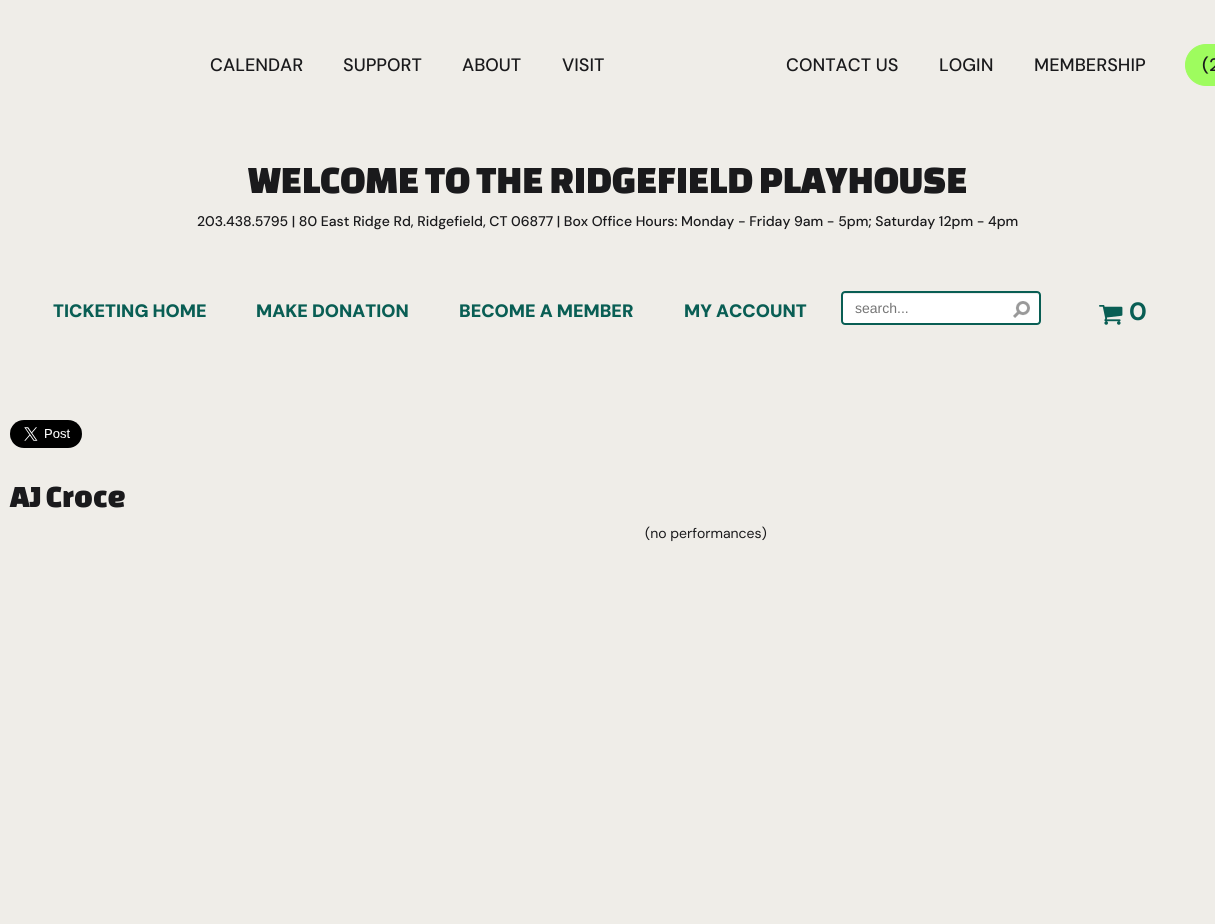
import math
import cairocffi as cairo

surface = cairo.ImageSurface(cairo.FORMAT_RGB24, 1215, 924)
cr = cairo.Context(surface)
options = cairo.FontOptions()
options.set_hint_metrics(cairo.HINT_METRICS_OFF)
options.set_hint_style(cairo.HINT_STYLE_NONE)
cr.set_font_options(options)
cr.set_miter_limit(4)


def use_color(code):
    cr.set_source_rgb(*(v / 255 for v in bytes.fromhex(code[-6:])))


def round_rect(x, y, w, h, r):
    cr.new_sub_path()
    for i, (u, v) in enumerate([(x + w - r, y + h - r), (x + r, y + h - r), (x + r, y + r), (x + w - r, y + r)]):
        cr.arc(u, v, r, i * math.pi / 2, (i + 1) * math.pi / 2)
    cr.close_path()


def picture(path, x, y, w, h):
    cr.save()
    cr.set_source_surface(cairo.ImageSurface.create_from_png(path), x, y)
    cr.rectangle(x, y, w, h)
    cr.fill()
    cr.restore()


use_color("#efede8")
cr.paint()
cr.select_font_face("DM Sans Medium")
cr.set_font_size(18)
use_color("#1a1a1c")
cr.move_to(210, 71)
cr.show_text("CALENDAR")
cr.move_to(343, 71)
cr.show_text("SUPPORT")
cr.move_to(462, 71)
cr.show_text("ABOUT")
cr.move_to(562, 71)
cr.show_text("VISIT")
cr.move_to(786, 71)
cr.show_text("CONTACT US")
cr.move_to(939, 71)
cr.show_text("LOGIN")
cr.move_to(1034, 71)
cr.show_text("MEMBERSHIP")
use_color("#9efc5e")
round_rect(1185.5, 44.5, 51, 41, 20.5)
cr.fill_preserve()
cr.set_line_width(1)
cr.stroke()
use_color("#1a1a1c")
cr.move_to(1202, 71)
cr.show_text("(2")
cr.select_font_face("Changa One")
cr.set_font_size(40)
cr.move_to(248, 193)
cr.show_text("WELCOME TO THE RIDGEFIELD PLAYHOUSE")
cr.select_font_face("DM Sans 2 Medium")
cr.set_font_size(14)
cr.move_to(197, 226)
cr.show_text("203.438.5795 | 80 East Ridge Rd, Ridgefield, CT 06877 | Box Office Hours: Monday - Friday 9am - 5pm; Saturday 12pm - 4pm")
cr.select_font_face("DM Sans Black")
cr.set_font_size(18)
use_color("#095e54")
cr.move_to(53, 317)
cr.show_text("TICKETING HOME")
cr.move_to(256, 317)
cr.show_text("MAKE DONATION")
cr.move_to(459, 317)
cr.show_text("BECOME A MEMBER")
cr.move_to(684, 317)
cr.show_text("MY ACCOUNT")
use_color("#ffffff")
round_rect(841, 291, 200, 34, 4)
cr.fill()
use_color("#ececec")
cr.new_path()
cr.move_to(845, 294)
cr.line_to(1037, 294)
cr.line_to(1039, 295)
cr.line_to(1039, 296)
cr.line_to(1039, 295)
cr.curve_to(1039, 294, 1038, 293, 1037, 293)
cr.line_to(845, 293)
cr.curve_to(844, 293, 843, 294, 843, 295)
cr.line_to(843, 296)
cr.curve_to(843, 295, 844, 294, 845, 294)
cr.close_path()
cr.fill()
round_rect(842, 292, 198, 32, 3)
use_color("#095e54")
cr.set_line_width(2)
cr.stroke()
cr.select_font_face("Liberation Sans")
cr.set_font_size(14)
use_color("#757575")
cr.move_to(855, 313)
cr.show_text("search...")
picture("img1.png", 1013, 301, 17, 17)
picture("img2.png", 1099, 305, 24, 20)
cr.select_font_face("DM Sans", cairo.FONT_SLANT_NORMAL, cairo.FONT_WEIGHT_BOLD)
cr.set_font_size(25)
use_color("#095e54")
cr.move_to(1129, 320)
cr.show_text("0")
picture("img3.png", 10, 420, 72, 28)
cr.select_font_face("Changa One")
cr.set_font_size(32)
use_color("#1a1a1c")
cr.move_to(10, 507)
cr.show_text("AJ Croce")
cr.select_font_face("DM Sans")
cr.set_font_size(14)
cr.move_to(645, 538)
cr.show_text("(no performances)")
surface.write_to_png("result.png")
